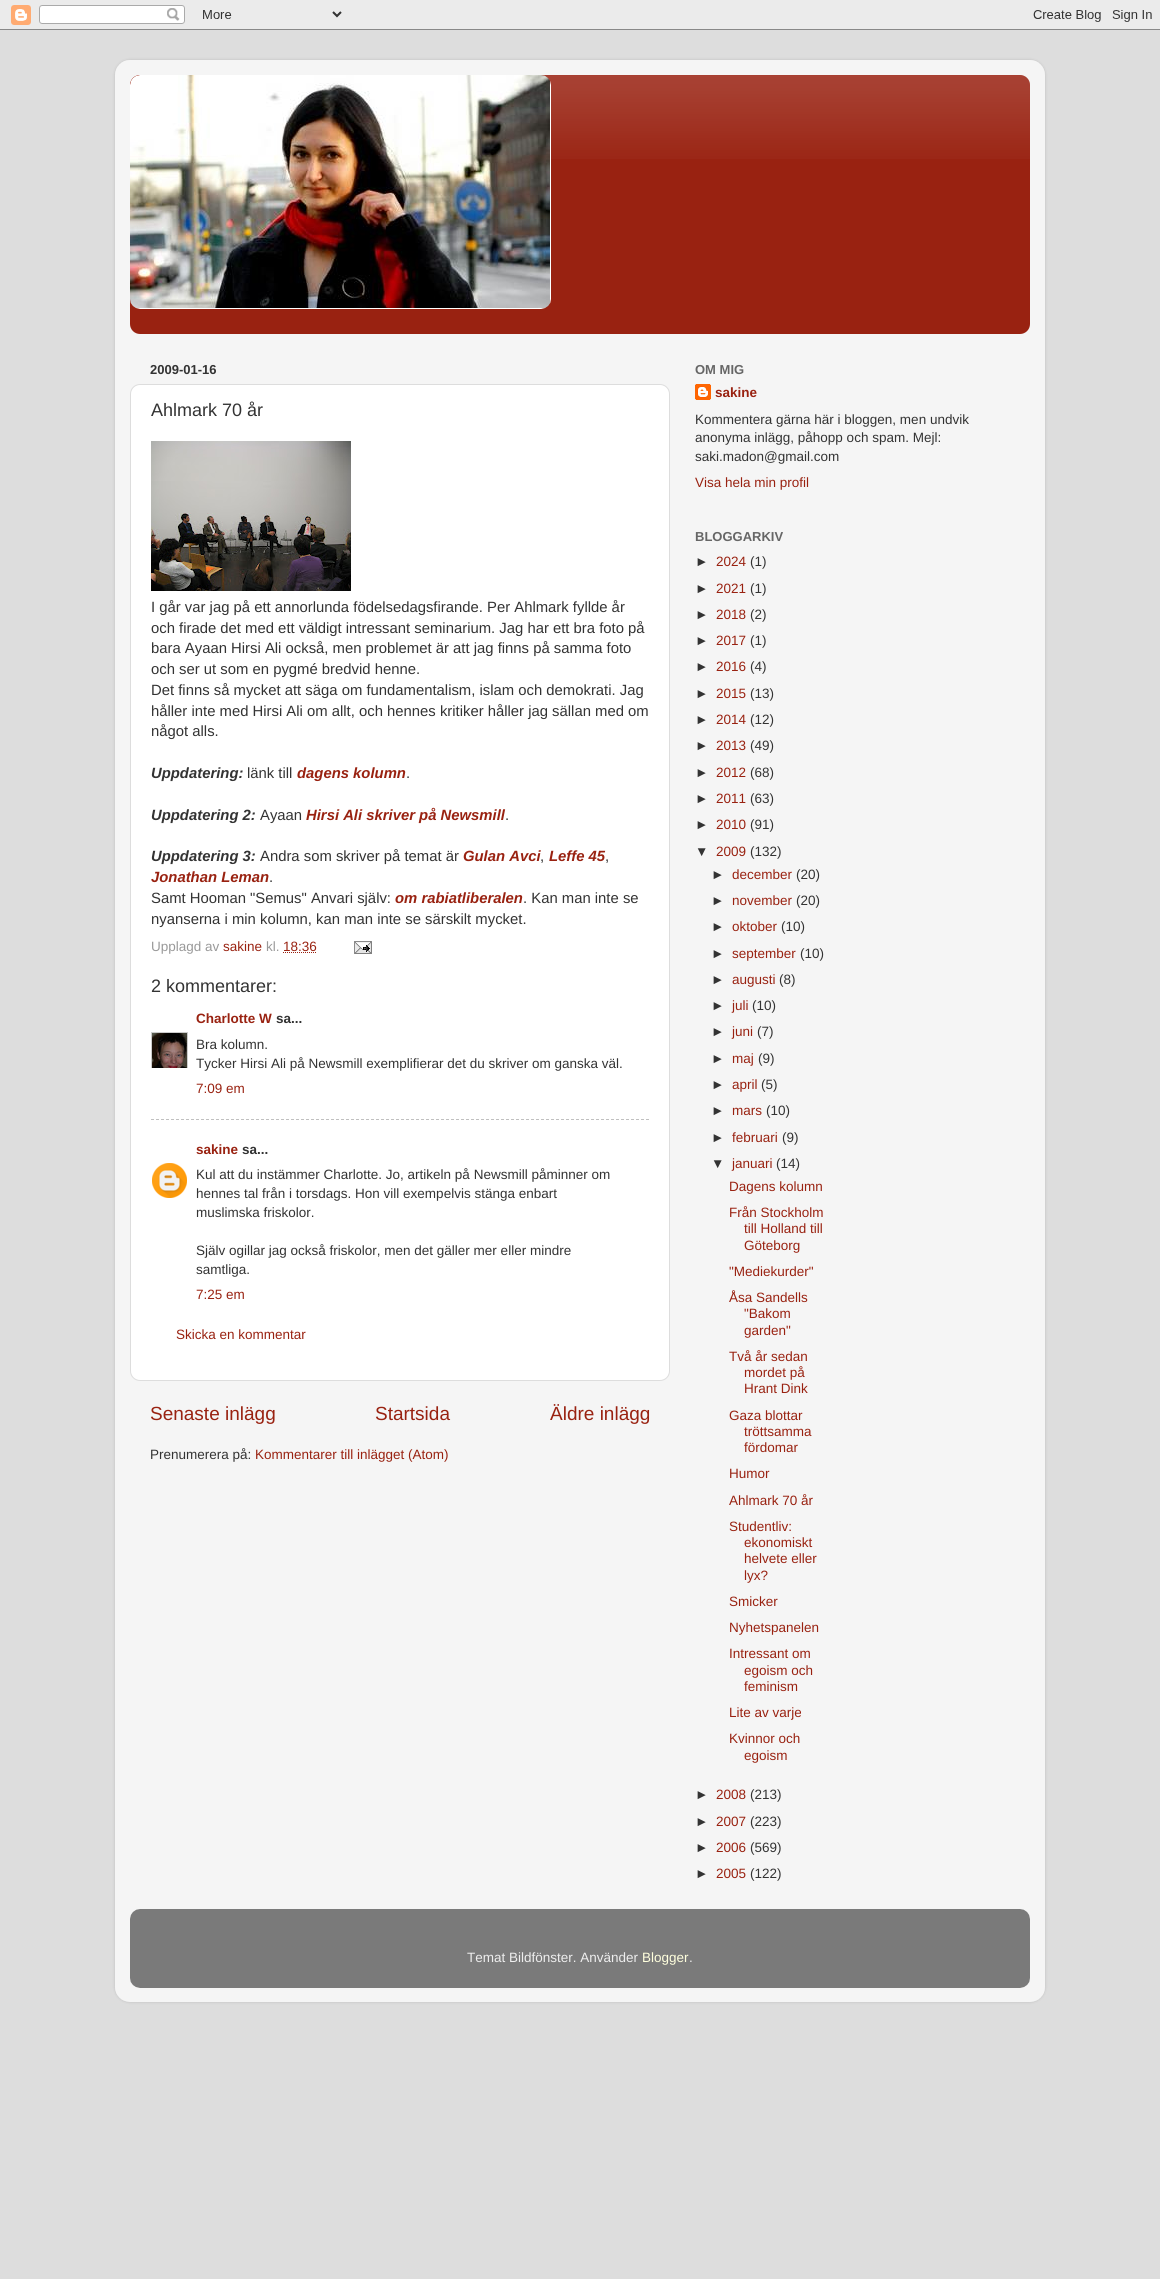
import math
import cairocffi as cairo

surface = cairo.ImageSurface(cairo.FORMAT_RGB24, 1160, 2279)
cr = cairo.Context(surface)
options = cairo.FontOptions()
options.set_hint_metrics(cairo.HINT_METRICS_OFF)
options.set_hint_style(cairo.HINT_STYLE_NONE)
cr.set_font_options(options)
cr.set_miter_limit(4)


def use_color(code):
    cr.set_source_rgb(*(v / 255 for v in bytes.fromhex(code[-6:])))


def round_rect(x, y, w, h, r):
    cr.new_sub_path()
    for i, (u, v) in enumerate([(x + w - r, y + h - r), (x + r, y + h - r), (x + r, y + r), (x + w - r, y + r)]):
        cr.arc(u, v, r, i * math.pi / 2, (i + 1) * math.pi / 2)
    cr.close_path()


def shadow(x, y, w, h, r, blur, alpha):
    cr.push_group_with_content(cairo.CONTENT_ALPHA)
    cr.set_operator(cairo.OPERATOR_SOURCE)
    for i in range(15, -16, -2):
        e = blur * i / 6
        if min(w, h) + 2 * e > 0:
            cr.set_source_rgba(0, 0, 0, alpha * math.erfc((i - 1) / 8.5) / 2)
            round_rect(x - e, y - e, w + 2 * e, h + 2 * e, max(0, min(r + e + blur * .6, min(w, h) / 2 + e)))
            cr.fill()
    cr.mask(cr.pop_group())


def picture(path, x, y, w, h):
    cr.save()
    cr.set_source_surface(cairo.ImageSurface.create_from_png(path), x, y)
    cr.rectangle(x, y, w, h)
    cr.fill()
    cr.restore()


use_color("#dddddd")
cr.paint()
picture("img1.png", 0, 0, 1160, 30)
cr.save()
cr.set_fill_rule(cairo.FILL_RULE_EVEN_ODD)
cr.new_path()
cr.move_to(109, 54)
cr.line_to(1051, 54)
cr.line_to(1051, 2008)
cr.line_to(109, 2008)
cr.close_path()
cr.move_to(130, 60)
cr.line_to(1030, 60)
cr.curve_to(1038.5, 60, 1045, 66.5, 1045, 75)
cr.line_to(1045, 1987)
cr.curve_to(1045, 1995.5, 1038.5, 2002, 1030, 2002)
cr.line_to(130, 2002)
cr.curve_to(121.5, 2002, 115, 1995.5, 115, 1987)
cr.line_to(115, 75)
cr.curve_to(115, 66.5, 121.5, 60, 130, 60)
cr.close_path()
cr.clip()
use_color("#000000")
shadow(115, 60, 930, 1942, 15, 1.5, 0.15)
cr.restore()
picture("img2.png", 115, 60, 930, 1942)
use_color("#992211")
round_rect(130, 75, 900, 259, 10)
cr.fill()
picture("img3.png", 130, 75, 900, 84)
picture("img4.png", 130, 75, 421, 234)
cr.select_font_face("Liberation Sans", cairo.FONT_SLANT_NORMAL, cairo.FONT_WEIGHT_BOLD)
cr.set_font_size(13)
use_color("#333333")
cr.move_to(150, 374)
cr.show_text("2009-01-16")
use_color("#ffffff")
round_rect(130.5, 384.5, 539, 996, 9.5)
cr.fill_preserve()
use_color("#dddddd")
cr.set_line_width(1)
cr.stroke()
cr.select_font_face("Liberation Sans")
cr.set_font_size(18)
use_color("#333333")
cr.move_to(151, 416)
cr.show_text("Ahlmark 70 år")
picture("img5.png", 151, 441, 200, 150)
cr.set_font_size(14.85)
cr.move_to(151, 612)
cr.show_text("I går var jag på ett annorlunda födelsedagsfirande. Per Ahlmark fyllde år")
cr.move_to(151, 633)
cr.show_text("och firade det med ett väldigt intressant seminarium. Jag har ett bra foto på")
cr.move_to(151, 653)
cr.show_text("bara Ayaan Hirsi Ali också, men problemet är att jag finns på samma foto")
cr.move_to(151, 674)
cr.show_text("och ser ut som en pygmé bredvid henne.")
cr.move_to(151, 695)
cr.show_text("Det finns så mycket att säga om fundamentalism, islam och demokrati. Jag")
cr.move_to(151, 716)
cr.show_text("håller inte med Hirsi Ali om allt, och hennes kritiker håller jag sällan med om")
cr.move_to(151, 736)
cr.show_text("något alls.")
cr.select_font_face("Liberation Sans", cairo.FONT_SLANT_ITALIC, cairo.FONT_WEIGHT_BOLD)
cr.move_to(151, 778)
cr.show_text("Uppdatering:")
cr.select_font_face("Liberation Sans")
cr.move_to(247, 778)
cr.show_text("länk till")
cr.select_font_face("Liberation Sans", cairo.FONT_SLANT_ITALIC, cairo.FONT_WEIGHT_BOLD)
use_color("#992211")
cr.move_to(297, 778)
cr.show_text("dagens kolumn")
cr.select_font_face("Liberation Sans")
use_color("#333333")
cr.move_to(406, 778)
cr.show_text(".")
cr.select_font_face("Liberation Sans", cairo.FONT_SLANT_ITALIC, cairo.FONT_WEIGHT_BOLD)
cr.move_to(151, 820)
cr.show_text("Uppdatering 2:")
cr.select_font_face("Liberation Sans")
cr.move_to(260, 820)
cr.show_text("Ayaan")
cr.select_font_face("Liberation Sans", cairo.FONT_SLANT_ITALIC, cairo.FONT_WEIGHT_BOLD)
use_color("#992211")
cr.move_to(306, 820)
cr.show_text("Hirsi Ali skriver på Newsmill")
cr.select_font_face("Liberation Sans")
use_color("#333333")
cr.move_to(505, 820)
cr.show_text(".")
cr.select_font_face("Liberation Sans", cairo.FONT_SLANT_ITALIC, cairo.FONT_WEIGHT_BOLD)
cr.move_to(151, 861)
cr.show_text("Uppdatering 3:")
cr.select_font_face("Liberation Sans")
cr.move_to(260, 861)
cr.show_text("Andra som skriver på temat är")
cr.select_font_face("Liberation Sans", cairo.FONT_SLANT_ITALIC, cairo.FONT_WEIGHT_BOLD)
use_color("#992211")
cr.move_to(463, 861)
cr.show_text("Gulan Avci")
cr.select_font_face("Liberation Sans")
use_color("#333333")
cr.move_to(540, 861)
cr.show_text(",")
cr.select_font_face("Liberation Sans", cairo.FONT_SLANT_ITALIC, cairo.FONT_WEIGHT_BOLD)
use_color("#992211")
cr.move_to(549, 861)
cr.show_text("Leffe 45")
cr.select_font_face("Liberation Sans")
use_color("#333333")
cr.move_to(605, 861)
cr.show_text(",")
cr.select_font_face("Liberation Sans", cairo.FONT_SLANT_ITALIC, cairo.FONT_WEIGHT_BOLD)
use_color("#992211")
cr.move_to(151, 882)
cr.show_text("Jonathan Leman")
cr.select_font_face("Liberation Sans")
use_color("#333333")
cr.move_to(269, 882)
cr.show_text(".")
cr.move_to(151, 903)
cr.show_text("Samt Hooman \"Semus\" Anvari själv:")
cr.select_font_face("Liberation Sans", cairo.FONT_SLANT_ITALIC, cairo.FONT_WEIGHT_BOLD)
use_color("#992211")
cr.move_to(395, 903)
cr.show_text("om rabiatliberalen")
cr.select_font_face("Liberation Sans")
use_color("#333333")
cr.move_to(523, 903)
cr.show_text(". Kan man inte se")
cr.move_to(151, 924)
cr.show_text("nyanserna i min kolumn, kan man inte se särskilt mycket.")
cr.set_font_size(13.5)
use_color("#999999")
cr.move_to(151, 951)
cr.show_text("Upplagd av")
use_color("#992211")
cr.move_to(223, 951)
cr.show_text("sakine")
use_color("#999999")
cr.move_to(266, 951)
cr.show_text("kl.")
use_color("#992211")
cr.move_to(283, 951)
cr.show_text("18:36")
cr.new_path()
cr.move_to(283, 952.5)
cr.line_to(317, 952.5)
cr.set_dash([1, 1])
cr.stroke()
picture("img6.png", 354, 941, 18, 13)
cr.set_font_size(18)
use_color("#333333")
cr.move_to(151, 992)
cr.show_text("2 kommentarer:")
cr.select_font_face("Liberation Sans", cairo.FONT_SLANT_NORMAL, cairo.FONT_WEIGHT_BOLD)
cr.set_font_size(13.5)
use_color("#992211")
cr.move_to(196, 1023)
cr.show_text("Charlotte W")
use_color("#333333")
cr.move_to(276, 1023)
cr.show_text("sa...")
cr.save()
cr.rectangle(151, 1032, 37, 36)
cr.clip()
cr.rectangle(151.5, 1032.5, 36, 36)
use_color("#cccccc")
cr.set_dash([])
cr.stroke()
cr.restore()
picture("img7.png", 152, 1033, 35, 35)
cr.select_font_face("Liberation Sans")
cr.move_to(196, 1049)
cr.show_text("Bra kolumn.")
cr.move_to(196, 1068)
cr.show_text("Tycker Hirsi Ali på Newsmill exemplifierar det du skriver om ganska väl.")
use_color("#992211")
cr.move_to(196, 1093)
cr.show_text("7:09 em")
cr.new_path()
cr.move_to(151, 1119.5)
cr.line_to(649, 1119.5)
use_color("#c0c0c0")
cr.set_dash([3, 2])
cr.stroke()
cr.select_font_face("Liberation Sans", cairo.FONT_SLANT_NORMAL, cairo.FONT_WEIGHT_BOLD)
use_color("#992211")
cr.move_to(196, 1154)
cr.show_text("sakine")
use_color("#333333")
cr.move_to(242, 1154)
cr.show_text("sa...")
picture("img8.png", 152, 1163, 35, 35)
cr.select_font_face("Liberation Sans")
cr.move_to(196, 1179)
cr.show_text("Kul att du instämmer Charlotte. Jo, artikeln på Newsmill påminner om")
cr.move_to(196, 1198)
cr.show_text("hennes tal från i torsdags. Hon vill exempelvis stänga enbart")
cr.move_to(196, 1217)
cr.show_text("muslimska friskolor.")
cr.move_to(196, 1255)
cr.show_text("Själv ogillar jag också friskolor, men det gäller mer eller mindre")
cr.move_to(196, 1274)
cr.show_text("samtliga.")
use_color("#992211")
cr.move_to(196, 1299)
cr.show_text("7:25 em")
cr.move_to(176, 1339)
cr.show_text("Skicka en kommentar")
cr.set_font_size(19)
cr.move_to(150, 1420)
cr.show_text("Senaste inlägg")
cr.move_to(375, 1420)
cr.show_text("Startsida")
cr.move_to(550, 1420)
cr.show_text("Äldre inlägg")
cr.set_font_size(13.5)
use_color("#333333")
cr.move_to(150, 1459)
cr.show_text("Prenumerera på:")
use_color("#992211")
cr.move_to(255, 1459)
cr.show_text("Kommentarer till inlägget (Atom)")
cr.select_font_face("Liberation Sans", cairo.FONT_SLANT_NORMAL, cairo.FONT_WEIGHT_BOLD)
cr.set_font_size(13)
use_color("#666666")
cr.move_to(695, 374)
cr.show_text("OM MIG")
picture("img9.png", 695, 384, 16, 16)
cr.set_font_size(13.5)
use_color("#992211")
cr.move_to(715, 397)
cr.show_text("sakine")
cr.select_font_face("Liberation Sans")
use_color("#333333")
cr.move_to(695, 424)
cr.show_text("Kommentera gärna här i bloggen, men undvik")
cr.move_to(695, 442)
cr.show_text("anonyma inlägg, påhopp och spam. Mejl:")
cr.move_to(695, 461)
cr.show_text("saki.madon@gmail.com")
use_color("#992211")
cr.move_to(695, 487)
cr.show_text("Visa hela min profil")
cr.select_font_face("Liberation Sans", cairo.FONT_SLANT_NORMAL, cairo.FONT_WEIGHT_BOLD)
cr.set_font_size(13)
use_color("#666666")
cr.move_to(695, 541)
cr.show_text("BLOGGARKIV")
cr.select_font_face("Liberation Sans")
cr.set_font_size(13.5)
use_color("#333333")
cr.move_to(695, 566)
cr.show_text("►")
use_color("#992211")
cr.move_to(716, 566)
cr.show_text("2024")
use_color("#333333")
cr.move_to(750, 566)
cr.show_text("(1)")
cr.move_to(695, 593)
cr.show_text("►")
use_color("#992211")
cr.move_to(716, 593)
cr.show_text("2021")
use_color("#333333")
cr.move_to(750, 593)
cr.show_text("(1)")
cr.move_to(695, 619)
cr.show_text("►")
use_color("#992211")
cr.move_to(716, 619)
cr.show_text("2018")
use_color("#333333")
cr.move_to(750, 619)
cr.show_text("(2)")
cr.move_to(695, 645)
cr.show_text("►")
use_color("#992211")
cr.move_to(716, 645)
cr.show_text("2017")
use_color("#333333")
cr.move_to(750, 645)
cr.show_text("(1)")
cr.move_to(695, 671)
cr.show_text("►")
use_color("#992211")
cr.move_to(716, 671)
cr.show_text("2016")
use_color("#333333")
cr.move_to(750, 671)
cr.show_text("(4)")
cr.move_to(695, 698)
cr.show_text("►")
use_color("#992211")
cr.move_to(716, 698)
cr.show_text("2015")
use_color("#333333")
cr.move_to(750, 698)
cr.show_text("(13)")
cr.move_to(695, 724)
cr.show_text("►")
use_color("#992211")
cr.move_to(716, 724)
cr.show_text("2014")
use_color("#333333")
cr.move_to(750, 724)
cr.show_text("(12)")
cr.move_to(695, 750)
cr.show_text("►")
use_color("#992211")
cr.move_to(716, 750)
cr.show_text("2013")
use_color("#333333")
cr.move_to(750, 750)
cr.show_text("(49)")
cr.move_to(695, 777)
cr.show_text("►")
use_color("#992211")
cr.move_to(716, 777)
cr.show_text("2012")
use_color("#333333")
cr.move_to(750, 777)
cr.show_text("(68)")
cr.move_to(695, 803)
cr.show_text("►")
use_color("#992211")
cr.move_to(716, 803)
cr.show_text("2011")
use_color("#333333")
cr.move_to(750, 803)
cr.show_text("(63)")
cr.move_to(695, 829)
cr.show_text("►")
use_color("#992211")
cr.move_to(716, 829)
cr.show_text("2010")
use_color("#333333")
cr.move_to(750, 829)
cr.show_text("(91)")
cr.move_to(695, 856)
cr.show_text("▼")
use_color("#992211")
cr.move_to(716, 856)
cr.show_text("2009")
use_color("#333333")
cr.move_to(750, 856)
cr.show_text("(132)")
cr.move_to(711, 879)
cr.show_text("►")
use_color("#992211")
cr.move_to(732, 879)
cr.show_text("december")
use_color("#333333")
cr.move_to(796, 879)
cr.show_text("(20)")
cr.move_to(711, 905)
cr.show_text("►")
use_color("#992211")
cr.move_to(732, 905)
cr.show_text("november")
use_color("#333333")
cr.move_to(796, 905)
cr.show_text("(20)")
cr.move_to(711, 931)
cr.show_text("►")
use_color("#992211")
cr.move_to(732, 931)
cr.show_text("oktober")
use_color("#333333")
cr.move_to(781, 931)
cr.show_text("(10)")
cr.move_to(711, 958)
cr.show_text("►")
use_color("#992211")
cr.move_to(732, 958)
cr.show_text("september")
use_color("#333333")
cr.move_to(800, 958)
cr.show_text("(10)")
cr.move_to(711, 984)
cr.show_text("►")
use_color("#992211")
cr.move_to(732, 984)
cr.show_text("augusti")
use_color("#333333")
cr.move_to(779, 984)
cr.show_text("(8)")
cr.move_to(711, 1010)
cr.show_text("►")
use_color("#992211")
cr.move_to(732, 1010)
cr.show_text("juli")
use_color("#333333")
cr.move_to(752, 1010)
cr.show_text("(10)")
cr.move_to(711, 1036)
cr.show_text("►")
use_color("#992211")
cr.move_to(732, 1036)
cr.show_text("juni")
use_color("#333333")
cr.move_to(757, 1036)
cr.show_text("(7)")
cr.move_to(711, 1063)
cr.show_text("►")
use_color("#992211")
cr.move_to(732, 1063)
cr.show_text("maj")
use_color("#333333")
cr.move_to(758, 1063)
cr.show_text("(9)")
cr.move_to(711, 1089)
cr.show_text("►")
use_color("#992211")
cr.move_to(732, 1089)
cr.show_text("april")
use_color("#333333")
cr.move_to(761, 1089)
cr.show_text("(5)")
cr.move_to(711, 1115)
cr.show_text("►")
use_color("#992211")
cr.move_to(732, 1115)
cr.show_text("mars")
use_color("#333333")
cr.move_to(766, 1115)
cr.show_text("(10)")
cr.move_to(711, 1142)
cr.show_text("►")
use_color("#992211")
cr.move_to(732, 1142)
cr.show_text("februari")
use_color("#333333")
cr.move_to(782, 1142)
cr.show_text("(9)")
cr.move_to(711, 1168)
cr.show_text("▼")
use_color("#992211")
cr.move_to(732, 1168)
cr.show_text("januari")
use_color("#333333")
cr.move_to(776, 1168)
cr.show_text("(14)")
use_color("#992211")
cr.move_to(729, 1191)
cr.show_text("Dagens kolumn")
cr.move_to(729, 1217)
cr.show_text("Från Stockholm")
cr.move_to(744, 1233)
cr.show_text("till Holland till")
cr.move_to(744, 1250)
cr.show_text("Göteborg")
cr.move_to(729, 1276)
cr.show_text("\"Mediekurder\"")
cr.move_to(729, 1302)
cr.show_text("Åsa Sandells")
cr.move_to(744, 1318)
cr.show_text("\"Bakom")
cr.move_to(744, 1335)
cr.show_text("garden\"")
cr.move_to(729, 1361)
cr.show_text("Två år sedan")
cr.move_to(744, 1377)
cr.show_text("mordet på")
cr.move_to(744, 1393)
cr.show_text("Hrant Dink")
cr.move_to(729, 1420)
cr.show_text("Gaza blottar")
cr.move_to(744, 1436)
cr.show_text("tröttsamma")
cr.move_to(744, 1452)
cr.show_text("fördomar")
cr.move_to(729, 1478)
cr.show_text("Humor")
cr.move_to(729, 1505)
cr.show_text("Ahlmark 70 år")
cr.move_to(729, 1531)
cr.show_text("Studentliv:")
cr.move_to(744, 1547)
cr.show_text("ekonomiskt")
cr.move_to(744, 1563)
cr.show_text("helvete eller")
cr.move_to(744, 1580)
cr.show_text("lyx?")
cr.move_to(729, 1606)
cr.show_text("Smicker")
cr.move_to(729, 1632)
cr.show_text("Nyhetspanelen")
cr.move_to(729, 1658)
cr.show_text("Intressant om")
cr.move_to(744, 1675)
cr.show_text("egoism och")
cr.move_to(744, 1691)
cr.show_text("feminism")
cr.move_to(729, 1717)
cr.show_text("Lite av varje")
cr.move_to(729, 1743)
cr.show_text("Kvinnor och")
cr.move_to(744, 1760)
cr.show_text("egoism")
use_color("#333333")
cr.move_to(695, 1799)
cr.show_text("►")
use_color("#992211")
cr.move_to(716, 1799)
cr.show_text("2008")
use_color("#333333")
cr.move_to(750, 1799)
cr.show_text("(213)")
cr.move_to(695, 1826)
cr.show_text("►")
use_color("#992211")
cr.move_to(716, 1826)
cr.show_text("2007")
use_color("#333333")
cr.move_to(750, 1826)
cr.show_text("(223)")
cr.move_to(695, 1852)
cr.show_text("►")
use_color("#992211")
cr.move_to(716, 1852)
cr.show_text("2006")
use_color("#333333")
cr.move_to(750, 1852)
cr.show_text("(569)")
cr.move_to(695, 1878)
cr.show_text("►")
use_color("#992211")
cr.move_to(716, 1878)
cr.show_text("2005")
use_color("#333333")
cr.move_to(750, 1878)
cr.show_text("(122)")
picture("img10.png", 130, 1909, 900, 79)
use_color("#eeeeee")
cr.move_to(467, 1962)
cr.show_text("Temat Bildfönster. Använder")
use_color("#ffffdd")
cr.move_to(642, 1962)
cr.show_text("Blogger")
use_color("#eeeeee")
cr.move_to(689, 1962)
cr.show_text(".")
surface.write_to_png("result.png")
